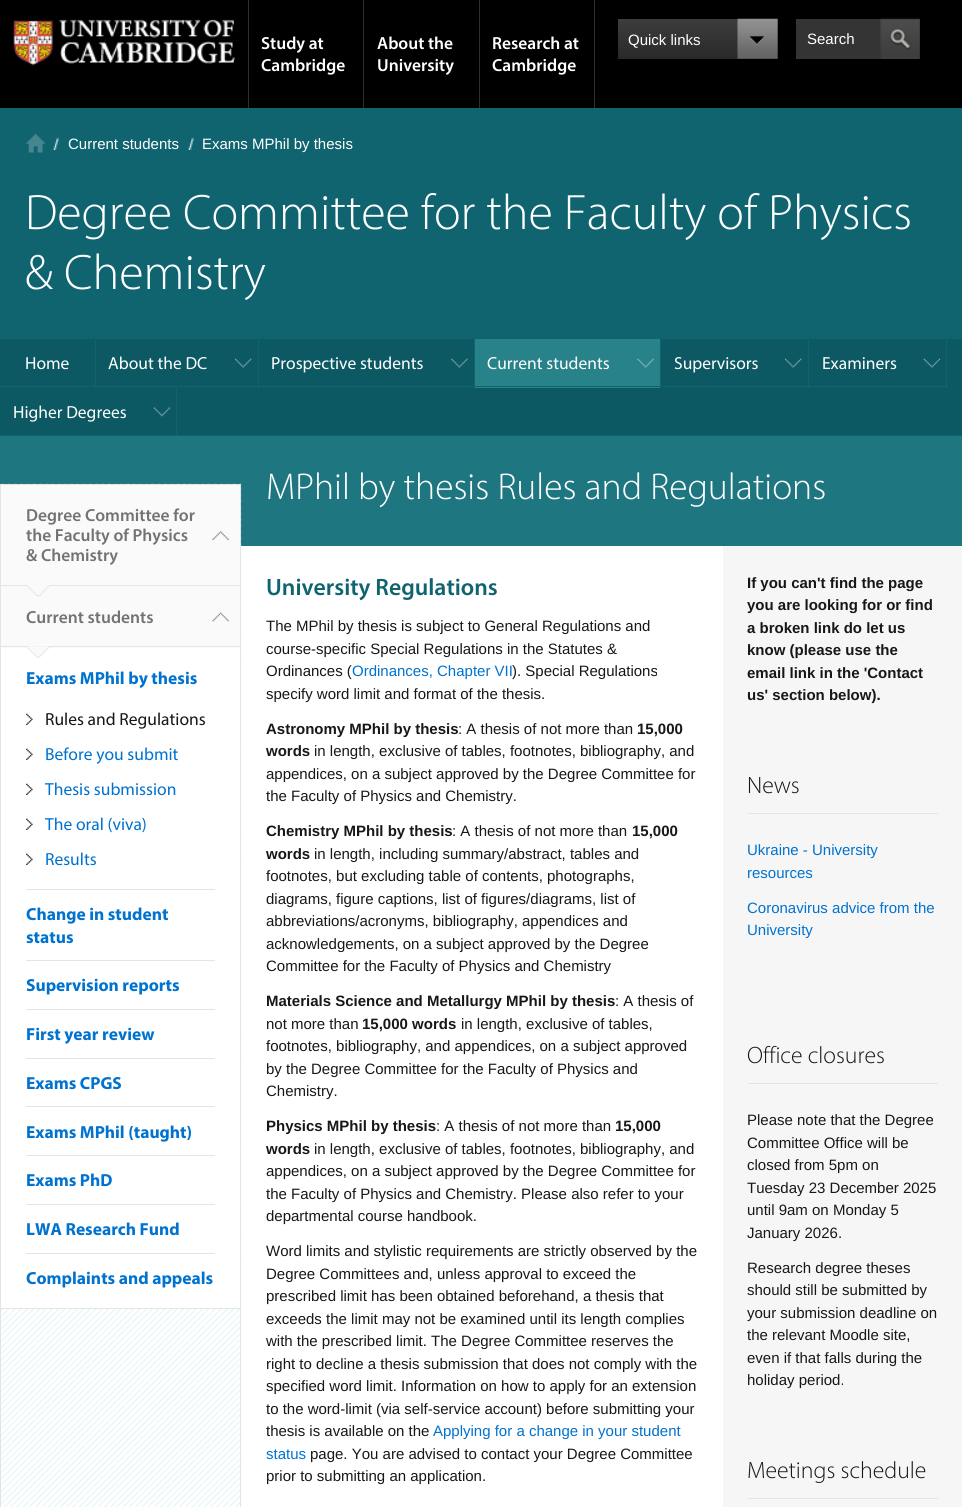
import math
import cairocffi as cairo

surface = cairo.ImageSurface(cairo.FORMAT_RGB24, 962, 1507)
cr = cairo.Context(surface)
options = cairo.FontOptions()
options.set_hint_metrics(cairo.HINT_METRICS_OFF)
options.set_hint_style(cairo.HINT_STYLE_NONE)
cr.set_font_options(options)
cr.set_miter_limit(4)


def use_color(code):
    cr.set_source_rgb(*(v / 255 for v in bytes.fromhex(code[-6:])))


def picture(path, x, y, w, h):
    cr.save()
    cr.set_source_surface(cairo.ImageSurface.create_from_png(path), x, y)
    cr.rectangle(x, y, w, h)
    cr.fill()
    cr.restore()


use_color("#000000")
cr.paint()
picture("img1.png", 13, 19, 222, 47)
use_color("#2e2e2e")
cr.rectangle(248, 0, 1, 108)
cr.fill()
cr.rectangle(363, 0, 1, 108)
cr.fill()
cr.select_font_face("Myriad SemiBold")
cr.set_font_size(17.5)
use_color("#ffffff")
cr.move_to(261, 49)
cr.show_text("Study at")
cr.move_to(261, 71)
cr.show_text("Cambridge")
use_color("#2e2e2e")
cr.rectangle(479, 0, 1, 108)
cr.fill()
use_color("#ffffff")
cr.move_to(377, 49)
cr.show_text("About the")
cr.move_to(377, 71)
cr.show_text("University")
use_color("#2e2e2e")
cr.rectangle(594, 0, 1, 108)
cr.fill()
use_color("#ffffff")
cr.move_to(492, 49)
cr.show_text("Research at")
cr.move_to(492, 71)
cr.show_text("Cambridge")
gradient = cairo.LinearGradient(698, 19, 698, 59)
gradient.add_color_stop_rgba(0, 0.239, 0.239, 0.239, 1)
gradient.add_color_stop_rgba(1, 0.161, 0.161, 0.161, 1)
cr.set_source(gradient)
cr.rectangle(618, 19, 160, 40)
cr.fill()
cr.select_font_face("Liberation Sans")
cr.set_font_size(15)
use_color("#ffffff")
cr.move_to(628, 45)
cr.show_text("Quick links")
picture("img2.png", 737, 18, 41, 41)
use_color("#343434")
cr.rectangle(796, 19, 124, 40)
cr.fill()
use_color("#ffffff")
cr.move_to(807, 44)
cr.show_text("Search")
picture("img3.png", 880, 18, 40, 41)
use_color("#106470")
cr.rectangle(0, 108, 962, 230)
cr.fill()
picture("img4.png", 26, 133, 19, 20)
picture("img5.png", 53, 137, 6, 13)
use_color("#ffffff")
cr.move_to(68, 149)
cr.show_text("Current students")
picture("img6.png", 188, 137, 6, 13)
cr.move_to(202, 149)
cr.show_text("Exams MPhil by thesis")
cr.select_font_face("Myriad Light")
cr.set_font_size(50)
cr.move_to(25, 229)
cr.show_text("Degree Committee for the Faculty of Physics")
cr.move_to(25, 289)
cr.show_text("& Chemistry")
use_color("#0c5963")
cr.rectangle(178, 339, 784, 96)
cr.fill()
use_color("#106470")
cr.rectangle(948, 338, 14, 1)
cr.fill()
cr.rectangle(178, 435, 784, 1)
cr.fill()
use_color("#0c5963")
cr.rectangle(0, 339, 95, 47)
cr.fill()
use_color("#106470")
cr.rectangle(0, 338, 948, 1)
cr.fill()
cr.rectangle(95, 338, 1, 50)
cr.fill()
cr.select_font_face("Myriad")
cr.set_font_size(17.5)
use_color("#ffffff")
cr.move_to(25, 369)
cr.show_text("Home")
use_color("#0c5963")
cr.rectangle(96, 339, 82, 49)
cr.fill()
picture("img7.png", 235, 358, 17, 10)
use_color("#106470")
cr.rectangle(258, 338, 1, 50)
cr.fill()
cr.rectangle(0, 386, 259, 1)
cr.fill()
use_color("#ffffff")
cr.move_to(108, 369)
cr.show_text("About the DC")
picture("img8.png", 451, 358, 17, 10)
use_color("#106470")
cr.rectangle(474, 338, 1, 50)
cr.fill()
cr.rectangle(259, 386, 216, 1)
cr.fill()
use_color("#ffffff")
cr.move_to(271, 369)
cr.show_text("Prospective students")
use_color("#28828a")
cr.rectangle(475, 339, 185, 49)
cr.fill()
picture("img9.png", 637, 358, 17, 10)
use_color("#106470")
cr.rectangle(660, 338, 1, 50)
cr.fill()
cr.rectangle(475, 386, 186, 1)
cr.fill()
use_color("#ffffff")
cr.move_to(487, 369)
cr.show_text("Current students")
picture("img7.png", 785, 358, 17, 10)
use_color("#106470")
cr.rectangle(808, 338, 1, 50)
cr.fill()
cr.rectangle(661, 386, 148, 1)
cr.fill()
use_color("#ffffff")
cr.move_to(674, 369)
cr.show_text("Supervisors")
picture("img10.png", 923, 358, 18, 10)
use_color("#106470")
cr.rectangle(946, 338, 1, 50)
cr.fill()
cr.rectangle(809, 386, 139, 1)
cr.fill()
use_color("#ffffff")
cr.move_to(822, 369)
cr.show_text("Examiners")
use_color("#0c5963")
cr.rectangle(0, 387, 178, 48)
cr.fill()
picture("img11.png", 153, 407, 18, 10)
use_color("#106470")
cr.rectangle(176, 386, 1, 50)
cr.fill()
cr.rectangle(0, 435, 178, 1)
cr.fill()
use_color("#ffffff")
cr.move_to(13, 418)
cr.show_text("Higher Degrees")
use_color("#1e7680")
cr.rectangle(0, 436, 962, 110)
cr.fill()
cr.select_font_face("Myriad Light")
cr.set_font_size(37.5)
use_color("#ffffff")
cr.move_to(266, 499)
cr.show_text("MPhil by thesis Rules and Regulations")
cr.rectangle(1, 546, 722, 961)
cr.fill()
picture("img12.png", 1, 483, 241, 1024)
use_color("#e4e4e4")
cr.rectangle(0, 484, 241, 1)
cr.fill()
cr.rectangle(240, 484, 1, 1023)
cr.fill()
cr.rectangle(0, 484, 1, 1023)
cr.fill()
use_color("#ffffff")
cr.rectangle(1, 648, 239, 660)
cr.fill()
use_color("#e4e4e4")
cr.rectangle(1, 1308, 239, 1)
cr.fill()
use_color("#fafafa")
cr.rectangle(1, 485, 239, 100)
cr.fill()
picture("img13.png", 212, 531, 17, 9)
use_color("#e4e4e4")
cr.rectangle(1, 585, 239, 1)
cr.fill()
cr.select_font_face("Myriad SemiBold")
cr.set_font_size(17.5)
use_color("#737373")
cr.move_to(26, 521)
cr.show_text("Degree Committee for")
cr.move_to(26, 541)
cr.show_text("the Faculty of Physics")
cr.move_to(26, 561)
cr.show_text("& Chemistry")
use_color("#fafafa")
cr.rectangle(1, 586, 239, 62)
cr.fill()
picture("img14.png", 26, 585, 24, 12)
picture("img15.png", 212, 612, 17, 10)
use_color("#e4e4e4")
cr.rectangle(1, 646, 239, 1)
cr.fill()
use_color("#737373")
cr.move_to(26, 623)
cr.show_text("Current students")
picture("img16.png", 26, 646, 24, 12)
use_color("#e4e4e4")
cr.rectangle(26, 889, 189, 1)
cr.fill()
cr.select_font_face("Myriad", cairo.FONT_SLANT_NORMAL, cairo.FONT_WEIGHT_BOLD)
use_color("#0072cf")
cr.move_to(26, 684)
cr.show_text("Exams MPhil by thesis")
picture("img17.png", 26, 713, 7, 12)
cr.select_font_face("Myriad")
use_color("#171717")
cr.move_to(45, 725)
cr.show_text("Rules and Regulations")
picture("img17.png", 26, 748, 7, 12)
use_color("#0072cf")
cr.move_to(45, 760)
cr.show_text("Before you submit")
picture("img17.png", 26, 783, 7, 12)
cr.move_to(45, 795)
cr.show_text("Thesis submission")
picture("img17.png", 26, 818, 7, 12)
cr.move_to(45, 830)
cr.show_text("The oral (viva)")
picture("img17.png", 26, 853, 7, 12)
cr.move_to(45, 865)
cr.show_text("Results")
use_color("#e4e4e4")
cr.rectangle(26, 960, 189, 1)
cr.fill()
cr.select_font_face("Myriad", cairo.FONT_SLANT_NORMAL, cairo.FONT_WEIGHT_BOLD)
use_color("#0072cf")
cr.move_to(26, 920)
cr.show_text("Change in student")
cr.move_to(26, 943)
cr.show_text("status")
use_color("#e4e4e4")
cr.rectangle(26, 1009, 189, 1)
cr.fill()
use_color("#0072cf")
cr.move_to(26, 991)
cr.show_text("Supervision reports")
use_color("#e4e4e4")
cr.rectangle(26, 1058, 189, 1)
cr.fill()
use_color("#0072cf")
cr.move_to(26, 1040)
cr.show_text("First year review")
use_color("#e4e4e4")
cr.rectangle(26, 1106, 189, 1)
cr.fill()
use_color("#0072cf")
cr.move_to(26, 1089)
cr.show_text("Exams CPGS")
use_color("#e4e4e4")
cr.rectangle(26, 1155, 189, 1)
cr.fill()
use_color("#0072cf")
cr.move_to(26, 1138)
cr.show_text("Exams MPhil (taught)")
use_color("#e4e4e4")
cr.rectangle(26, 1204, 189, 1)
cr.fill()
use_color("#0072cf")
cr.move_to(26, 1186)
cr.show_text("Exams PhD")
use_color("#e4e4e4")
cr.rectangle(26, 1253, 189, 1)
cr.fill()
use_color("#0072cf")
cr.move_to(26, 1235)
cr.show_text("LWA Research Fund")
cr.move_to(26, 1284)
cr.show_text("Complaints and appeals")
cr.select_font_face("Myriad SemiBold")
cr.set_font_size(23.75)
use_color("#106470")
cr.move_to(266, 595)
cr.show_text("University Regulations")
cr.select_font_face("Liberation Sans")
cr.set_font_size(15)
use_color("#171717")
cr.move_to(266, 631)
cr.show_text("The MPhil by thesis is subject to General Regulations and")
cr.move_to(266, 654)
cr.show_text("course-specific Special Regulations in the Statutes &")
cr.move_to(266, 676)
cr.show_text("Ordinances (")
use_color("#0072cf")
cr.move_to(352, 676)
cr.show_text("Ordinances, Chapter VII")
use_color("#171717")
cr.move_to(512, 676)
cr.show_text("). Special Regulations")
cr.move_to(266, 699)
cr.show_text("specify word limit and format of the thesis.")
cr.select_font_face("Liberation Sans", cairo.FONT_SLANT_NORMAL, cairo.FONT_WEIGHT_BOLD)
cr.move_to(266, 734)
cr.show_text("Astronomy MPhil by thesis")
cr.select_font_face("Liberation Sans")
cr.move_to(458, 734)
cr.show_text(": A thesis of not more than")
cr.select_font_face("Liberation Sans", cairo.FONT_SLANT_NORMAL, cairo.FONT_WEIGHT_BOLD)
cr.move_to(637, 734)
cr.show_text("15,000")
cr.move_to(266, 756)
cr.show_text("words")
cr.select_font_face("Liberation Sans")
cr.move_to(314, 756)
cr.show_text("in length, exclusive of tables, footnotes, bibliography, and")
cr.move_to(266, 779)
cr.show_text("appendices, on a subject approved by the Degree Committee for")
cr.move_to(266, 801)
cr.show_text("the Faculty of Physics and Chemistry.")
cr.select_font_face("Liberation Sans", cairo.FONT_SLANT_NORMAL, cairo.FONT_WEIGHT_BOLD)
cr.move_to(266, 836)
cr.show_text("Chemistry MPhil by thesis")
cr.select_font_face("Liberation Sans")
cr.move_to(452, 836)
cr.show_text(": A thesis of not more than")
cr.select_font_face("Liberation Sans", cairo.FONT_SLANT_NORMAL, cairo.FONT_WEIGHT_BOLD)
cr.move_to(632, 836)
cr.show_text("15,000")
cr.move_to(266, 859)
cr.show_text("words")
cr.select_font_face("Liberation Sans")
cr.move_to(314, 859)
cr.show_text("in length, including summary/abstract, tables and")
cr.move_to(266, 881)
cr.show_text("footnotes, but excluding table of contents, photographs,")
cr.move_to(266, 904)
cr.show_text("diagrams, figure captions, list of figures/diagrams, list of")
cr.move_to(266, 926)
cr.show_text("abbreviations/acronyms, bibliography, appendices and")
cr.move_to(266, 949)
cr.show_text("acknowledgements, on a subject approved by the Degree")
cr.move_to(266, 971)
cr.show_text("Committee for the Faculty of Physics and Chemistry")
cr.select_font_face("Liberation Sans", cairo.FONT_SLANT_NORMAL, cairo.FONT_WEIGHT_BOLD)
cr.move_to(266, 1006)
cr.show_text("Materials Science and Metallurgy MPhil by thesis")
cr.select_font_face("Liberation Sans")
cr.move_to(615, 1006)
cr.show_text(": A thesis of")
cr.move_to(266, 1029)
cr.show_text("not more than")
cr.select_font_face("Liberation Sans", cairo.FONT_SLANT_NORMAL, cairo.FONT_WEIGHT_BOLD)
cr.move_to(362, 1029)
cr.show_text("15,000 words")
cr.select_font_face("Liberation Sans")
cr.move_to(461, 1029)
cr.show_text("in length, exclusive of tables,")
cr.move_to(266, 1051)
cr.show_text("footnotes, bibliography, and appendices, on a subject approved")
cr.move_to(266, 1074)
cr.show_text("by the Degree Committee for the Faculty of Physics and")
cr.move_to(266, 1096)
cr.show_text("Chemistry.")
cr.select_font_face("Liberation Sans", cairo.FONT_SLANT_NORMAL, cairo.FONT_WEIGHT_BOLD)
cr.move_to(266, 1131)
cr.show_text("Physics MPhil by thesis")
cr.select_font_face("Liberation Sans")
cr.move_to(436, 1131)
cr.show_text(": A thesis of not more than")
cr.select_font_face("Liberation Sans", cairo.FONT_SLANT_NORMAL, cairo.FONT_WEIGHT_BOLD)
cr.move_to(615, 1131)
cr.show_text("15,000")
cr.move_to(266, 1154)
cr.show_text("words")
cr.select_font_face("Liberation Sans")
cr.move_to(314, 1154)
cr.show_text("in length, exclusive of tables, footnotes, bibliography, and")
cr.move_to(266, 1176)
cr.show_text("appendices, on a subject approved by the Degree Committee for")
cr.move_to(266, 1199)
cr.show_text("the Faculty of Physics and Chemistry. Please also refer to your")
cr.move_to(266, 1221)
cr.show_text("departmental course handbook.")
cr.move_to(266, 1256)
cr.show_text("Word limits and stylistic requirements are strictly observed by the")
cr.move_to(266, 1279)
cr.show_text("Degree Committees and, unless approval to exceed the")
cr.move_to(266, 1301)
cr.show_text("prescribed limit has been obtained beforehand, a thesis that")
cr.move_to(266, 1324)
cr.show_text("exceeds the limit may not be examined until its length complies")
cr.move_to(266, 1346)
cr.show_text("with the prescribed limit. The Degree Committee reserves the")
cr.move_to(266, 1369)
cr.show_text("right to decline a thesis submission that does not comply with the")
cr.move_to(266, 1391)
cr.show_text("specified word limit. Information on how to apply for an extension")
cr.move_to(266, 1414)
cr.show_text("to the word-limit (via self-service account) before submitting your")
cr.move_to(266, 1436)
cr.show_text("thesis is available on the")
use_color("#0072cf")
cr.move_to(433, 1436)
cr.show_text("Applying for a change in your student")
cr.move_to(266, 1459)
cr.show_text("status")
use_color("#171717")
cr.move_to(310, 1459)
cr.show_text("page. You are advised to contact your Degree Committee")
cr.move_to(266, 1481)
cr.show_text("prior to submitting an application.")
use_color("#f6f6f6")
cr.rectangle(723, 546, 239, 961)
cr.fill()
cr.select_font_face("Liberation Sans", cairo.FONT_SLANT_NORMAL, cairo.FONT_WEIGHT_BOLD)
use_color("#171717")
cr.move_to(747, 588)
cr.show_text("If you can't find the page")
cr.move_to(747, 610)
cr.show_text("you are looking for or find")
cr.move_to(747, 633)
cr.show_text("a broken link do let us")
cr.move_to(747, 655)
cr.show_text("know (please use the")
cr.move_to(747, 678)
cr.show_text("email link in the 'Contact")
cr.move_to(747, 700)
cr.show_text("us' section below).")
use_color("#e4e4e4")
cr.rectangle(748, 813, 190, 1)
cr.fill()
cr.select_font_face("Myriad Light")
cr.set_font_size(23.75)
use_color("#171717")
cr.move_to(747, 793)
cr.show_text("News")
cr.select_font_face("Liberation Sans")
cr.set_font_size(15)
use_color("#0072cf")
cr.move_to(747, 855)
cr.show_text("Ukraine - University")
cr.move_to(747, 878)
cr.show_text("resources")
cr.move_to(747, 913)
cr.show_text("Coronavirus advice from the")
cr.move_to(747, 935)
cr.show_text("University")
use_color("#e4e4e4")
cr.rectangle(748, 1083, 190, 1)
cr.fill()
cr.select_font_face("Myriad Light")
cr.set_font_size(23.75)
use_color("#171717")
cr.move_to(747, 1063)
cr.show_text("Office closures")
cr.select_font_face("Liberation Sans")
cr.set_font_size(15)
cr.move_to(747, 1125)
cr.show_text("Please note that the Degree")
cr.move_to(747, 1148)
cr.show_text("Committee Office will be")
cr.move_to(747, 1170)
cr.show_text("closed from 5pm on")
cr.move_to(747, 1193)
cr.show_text("Tuesday 23 December 2025")
cr.move_to(747, 1215)
cr.show_text("until 9am on Monday 5")
cr.move_to(747, 1238)
cr.show_text("January 2026.")
cr.move_to(747, 1273)
cr.show_text("Research degree theses")
cr.move_to(747, 1295)
cr.show_text("should still be submitted by")
cr.move_to(747, 1318)
cr.show_text("your submission deadline on")
cr.move_to(747, 1340)
cr.show_text("the relevant Moodle site,")
cr.move_to(747, 1363)
cr.show_text("even if that falls during the")
cr.move_to(747, 1385)
cr.show_text("holiday period.")
use_color("#e4e4e4")
cr.rectangle(748, 1498, 190, 1)
cr.fill()
cr.select_font_face("Myriad Light")
cr.set_font_size(23.75)
use_color("#171717")
cr.move_to(747, 1478)
cr.show_text("Meetings schedule")
surface.write_to_png("result.png")
